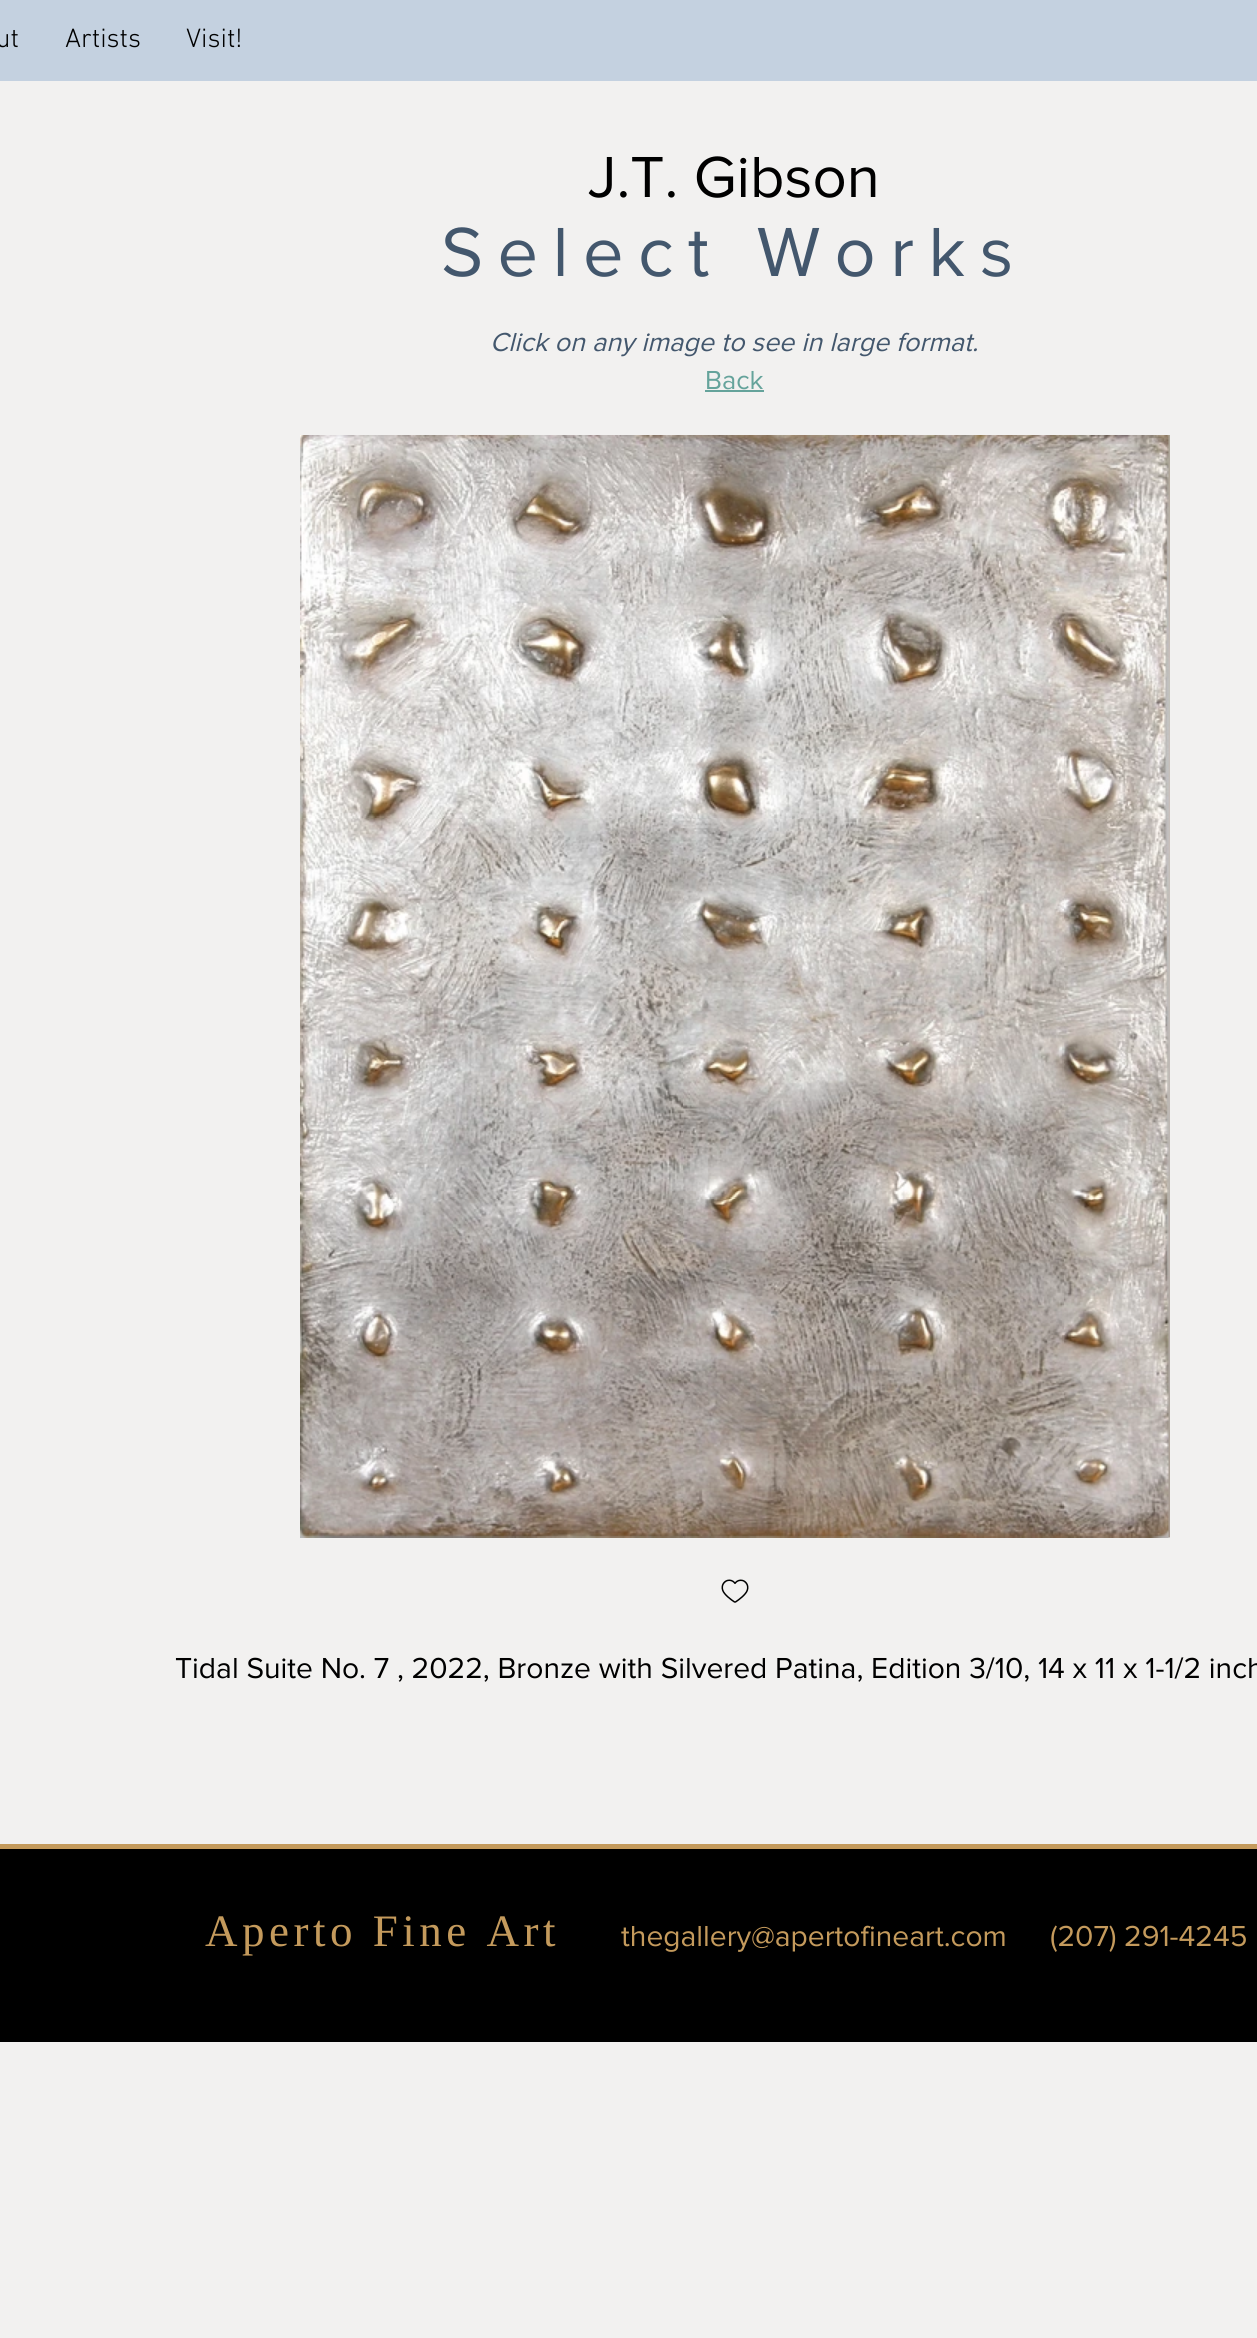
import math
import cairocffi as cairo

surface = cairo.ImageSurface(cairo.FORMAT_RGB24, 1257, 2338)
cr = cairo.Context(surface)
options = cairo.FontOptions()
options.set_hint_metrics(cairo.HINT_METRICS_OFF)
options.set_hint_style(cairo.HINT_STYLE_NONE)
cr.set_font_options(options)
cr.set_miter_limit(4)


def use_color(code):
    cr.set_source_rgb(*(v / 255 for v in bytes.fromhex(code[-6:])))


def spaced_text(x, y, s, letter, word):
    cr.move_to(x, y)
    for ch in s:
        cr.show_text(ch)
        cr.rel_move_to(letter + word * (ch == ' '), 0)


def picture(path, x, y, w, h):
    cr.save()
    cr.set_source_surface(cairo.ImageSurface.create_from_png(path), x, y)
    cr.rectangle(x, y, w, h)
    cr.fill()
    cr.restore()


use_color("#f2f1f0")
cr.paint()
use_color("#c4d1e0")
cr.rectangle(0, 0, 1257, 81)
cr.fill()
cr.select_font_face("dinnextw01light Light")
cr.set_font_size(27)
use_color("#000000")
cr.move_to(-4, 47)
cr.show_text("ut")
cr.move_to(65, 47)
cr.show_text("Artists")
cr.move_to(186, 47)
cr.show_text("Visit!")
cr.select_font_face("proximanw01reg")
cr.set_font_size(60)
cr.move_to(588, 197)
cr.show_text("J.T. Gibson")
cr.set_font_size(72)
use_color("#43576d")
spaced_text(441, 276, "Select Works", 14.4, 0)
cr.select_font_face("proximanw01reg", cairo.FONT_SLANT_ITALIC)
cr.set_font_size(27)
cr.move_to(490, 351)
cr.show_text("Click on any image to see in large format.")
cr.select_font_face("proximanw01reg")
use_color("#65a39b")
cr.move_to(705, 389)
cr.show_text("Back")
cr.rectangle(705, 390, 59, 2)
cr.fill()
picture("img2.png", 1168, 435, 2, 1103)
picture("img1.png", 300, 435, 869, 1103)
picture("img3.png", 721, 1579, 28, 24)
cr.set_font_size(30)
use_color("#000000")
cr.move_to(175, 1678)
cr.show_text("Tidal Suite No. 7 , 2022, Bronze with Silvered Patina, Edition 3/10, 14 x 11 x 1-1/2 inch")
cr.rectangle(0, 1849, 1257, 193)
cr.fill()
use_color("#c49a5c")
cr.rectangle(0, 1844, 1257, 5)
cr.fill()
cr.select_font_face("Liberation Serif")
cr.set_font_size(45)
spaced_text(205, 1946, "Aperto Fine Art", 4.5, 0)
cr.select_font_face("proximanw01reg")
cr.set_font_size(30)
cr.move_to(621, 1946)
cr.show_text("thegallery@apertofineart.com")
cr.move_to(1050, 1946)
cr.show_text("(207) 291-4245")
surface.write_to_png("result.png")
